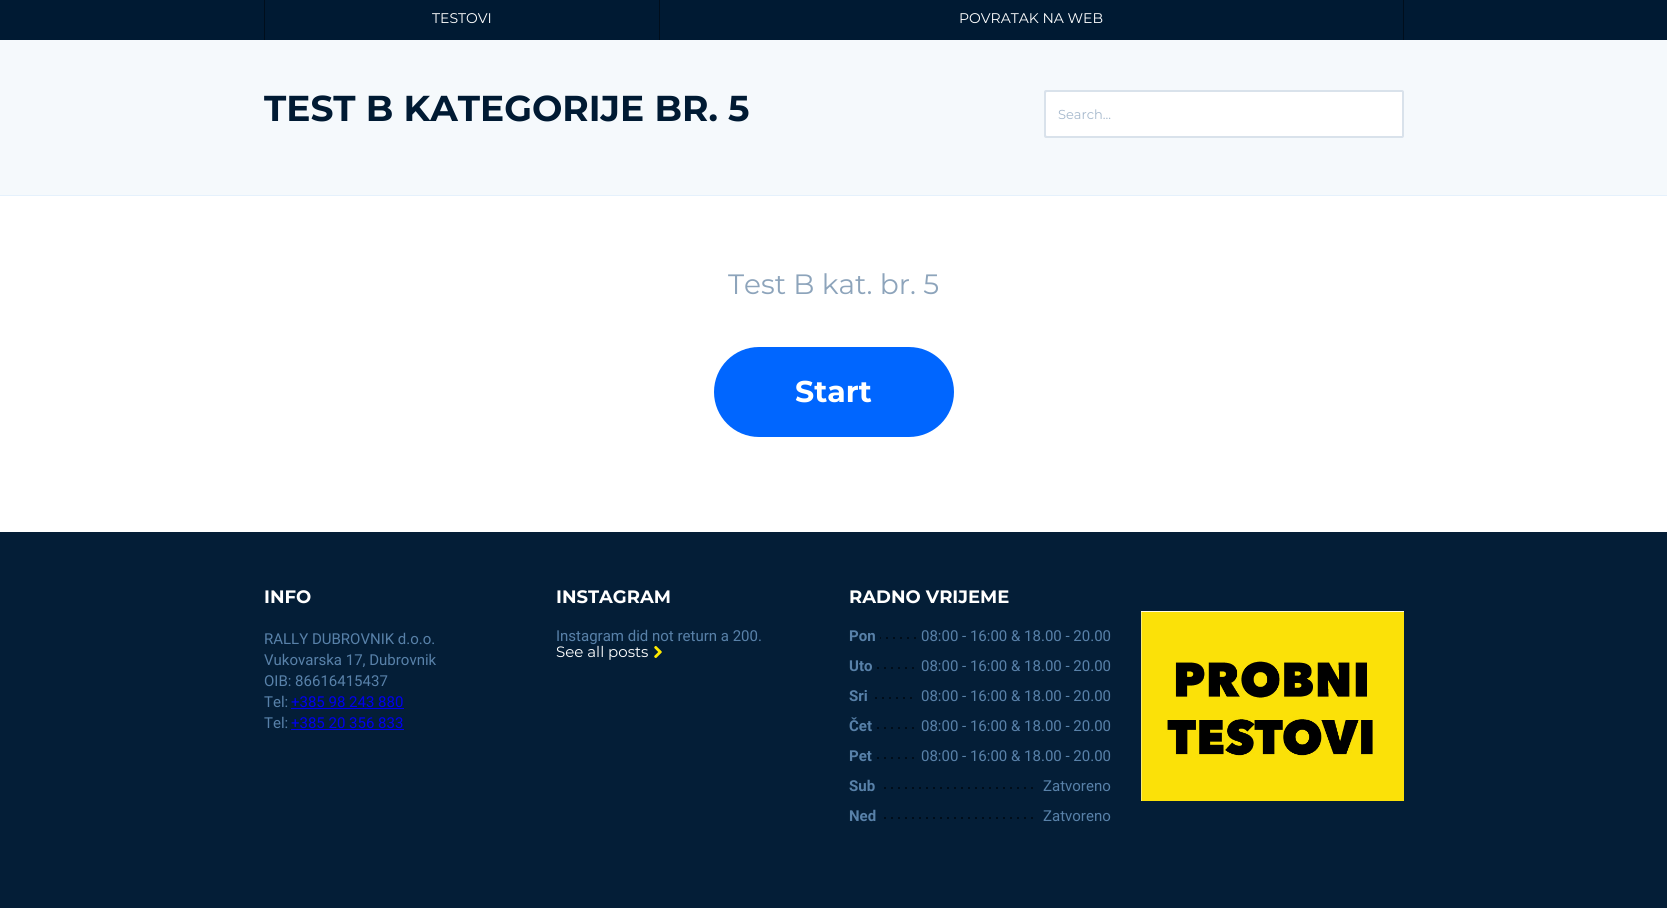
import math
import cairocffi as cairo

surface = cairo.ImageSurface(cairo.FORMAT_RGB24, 1667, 908)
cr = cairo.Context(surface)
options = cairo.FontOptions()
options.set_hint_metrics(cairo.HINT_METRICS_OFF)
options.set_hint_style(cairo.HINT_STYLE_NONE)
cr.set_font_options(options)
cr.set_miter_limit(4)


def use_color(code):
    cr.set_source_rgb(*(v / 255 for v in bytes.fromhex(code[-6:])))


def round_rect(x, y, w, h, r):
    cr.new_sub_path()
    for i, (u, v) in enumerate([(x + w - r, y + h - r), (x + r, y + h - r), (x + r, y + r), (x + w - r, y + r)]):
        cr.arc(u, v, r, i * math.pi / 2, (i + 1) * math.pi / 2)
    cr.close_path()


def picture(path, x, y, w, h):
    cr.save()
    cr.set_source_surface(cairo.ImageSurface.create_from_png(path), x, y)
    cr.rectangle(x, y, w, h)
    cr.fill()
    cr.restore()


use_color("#ffffff")
cr.paint()
use_color("#001a33")
cr.rectangle(0, 0, 1667, 40)
cr.fill()
use_color("#000e1c")
cr.rectangle(264, 0, 1, 40)
cr.fill()
cr.select_font_face("Montserrat")
cr.set_font_size(14)
use_color("#ffffff")
cr.move_to(432, 23)
cr.show_text("TESTOVI")
use_color("#000e1c")
cr.rectangle(1403, 0, 1, 40)
cr.fill()
cr.rectangle(659, 0, 1, 40)
cr.fill()
use_color("#ffffff")
cr.move_to(959, 23)
cr.show_text("POVRATAK NA WEB")
use_color("#f5f9fc")
cr.rectangle(0, 40, 1667, 155)
cr.fill()
use_color("#e5f1fc")
cr.rectangle(0, 195, 1667, 1)
cr.fill()
cr.select_font_face("Montserrat", cairo.FONT_SLANT_NORMAL, cairo.FONT_WEIGHT_BOLD)
cr.set_font_size(36)
use_color("#001a33")
cr.move_to(264, 121)
cr.show_text("TEST B KATEGORIJE BR. 5")
use_color("#d9e2eb")
round_rect(1044, 90, 360, 48, 2)
cr.fill()
use_color("#ffffff")
round_rect(1046, 92, 356, 44, 1)
cr.fill()
cr.select_font_face("Montserrat")
cr.set_font_size(13)
use_color("#a5b8cc")
cr.move_to(1058, 119)
cr.show_text("Search...")
use_color("#ffffff")
cr.rectangle(1401, 92, 1, 44)
cr.fill()
cr.set_font_size(28)
use_color("#8da4bb")
cr.move_to(728, 294)
cr.show_text("Test B kat. br. 5")
use_color("#0066ff")
round_rect(714, 347, 240, 90, 45)
cr.fill()
cr.select_font_face("Montserrat", cairo.FONT_SLANT_NORMAL, cairo.FONT_WEIGHT_BOLD)
cr.set_font_size(30)
use_color("#ffffff")
cr.move_to(795, 402)
cr.show_text("Start")
use_color("#041e37")
cr.rectangle(0, 532, 1667, 376)
cr.fill()
cr.set_font_size(18)
use_color("#ffffff")
cr.move_to(264, 603)
cr.show_text("INFO")
cr.select_font_face("Roboto")
cr.set_font_size(15)
use_color("#5881a9")
cr.move_to(264, 644)
cr.show_text("RALLY DUBROVNIK d.o.o.")
cr.move_to(264, 665)
cr.show_text("Vukovarska 17, Dubrovnik")
cr.move_to(264, 686)
cr.show_text("OIB: 86616415437")
cr.move_to(264, 707)
cr.show_text("Tel:")
use_color("#0000ee")
cr.move_to(291, 707)
cr.show_text("+385 98 243 880")
cr.rectangle(291, 708, 113, 1)
cr.fill()
use_color("#5881a9")
cr.move_to(264, 728)
cr.show_text("Tel:")
use_color("#0000ee")
cr.move_to(291, 728)
cr.show_text("+385 20 356 833")
cr.rectangle(291, 729, 113, 1)
cr.fill()
cr.select_font_face("Montserrat", cairo.FONT_SLANT_NORMAL, cairo.FONT_WEIGHT_BOLD)
cr.set_font_size(18)
use_color("#ffffff")
cr.move_to(556, 603)
cr.show_text("INSTAGRAM")
cr.select_font_face("Roboto")
cr.set_font_size(15)
use_color("#5881a9")
cr.move_to(556, 641)
cr.show_text("Instagram did not return a 200.")
cr.select_font_face("Montserrat")
use_color("#ffffff")
cr.move_to(556, 657)
cr.show_text("See all posts")
picture("img1.png", 654, 646, 8, 12)
cr.select_font_face("Montserrat", cairo.FONT_SLANT_NORMAL, cairo.FONT_WEIGHT_BOLD)
cr.set_font_size(18)
cr.move_to(849, 603)
cr.show_text("RADNO VRIJEME")
cr.select_font_face("Roboto", cairo.FONT_SLANT_NORMAL, cairo.FONT_WEIGHT_BOLD)
cr.set_font_size(15)
use_color("#5881a9")
cr.move_to(849, 641)
cr.show_text("Pon")
use_color("#000d1a")
cr.rectangle(880, 637, 1, 2)
cr.fill()
cr.rectangle(886, 637, 2, 2)
cr.fill()
cr.rectangle(893, 637, 2, 2)
cr.fill()
cr.rectangle(900, 637, 2, 2)
cr.fill()
cr.rectangle(907, 637, 2, 2)
cr.fill()
cr.rectangle(914, 637, 2, 2)
cr.fill()
cr.select_font_face("Roboto")
use_color("#5881a9")
cr.move_to(921, 641)
cr.show_text("08:00 - 16:00 & 18.00 - 20.00")
cr.select_font_face("Roboto", cairo.FONT_SLANT_NORMAL, cairo.FONT_WEIGHT_BOLD)
cr.move_to(849, 671)
cr.show_text("Uto")
use_color("#000d1a")
cr.rectangle(877, 667, 2, 2)
cr.fill()
cr.rectangle(884, 667, 2, 2)
cr.fill()
cr.rectangle(891, 667, 2, 2)
cr.fill()
cr.rectangle(898, 667, 2, 2)
cr.fill()
cr.rectangle(905, 667, 2, 2)
cr.fill()
cr.rectangle(912, 667, 2, 2)
cr.fill()
cr.select_font_face("Roboto")
use_color("#5881a9")
cr.move_to(921, 671)
cr.show_text("08:00 - 16:00 & 18.00 - 20.00")
cr.select_font_face("Roboto", cairo.FONT_SLANT_NORMAL, cairo.FONT_WEIGHT_BOLD)
cr.move_to(849, 701)
cr.show_text("Sri")
use_color("#000d1a")
cr.rectangle(875, 697, 2, 2)
cr.fill()
cr.rectangle(882, 697, 2, 2)
cr.fill()
cr.rectangle(889, 697, 2, 2)
cr.fill()
cr.rectangle(896, 697, 2, 2)
cr.fill()
cr.rectangle(903, 697, 2, 2)
cr.fill()
cr.rectangle(910, 697, 2, 2)
cr.fill()
cr.select_font_face("Roboto")
use_color("#5881a9")
cr.move_to(921, 701)
cr.show_text("08:00 - 16:00 & 18.00 - 20.00")
cr.select_font_face("Roboto", cairo.FONT_SLANT_NORMAL, cairo.FONT_WEIGHT_BOLD)
cr.move_to(849, 731)
cr.show_text("Čet")
use_color("#000d1a")
cr.rectangle(877, 727, 2, 2)
cr.fill()
cr.rectangle(884, 727, 2, 2)
cr.fill()
cr.rectangle(891, 727, 2, 2)
cr.fill()
cr.rectangle(898, 727, 2, 2)
cr.fill()
cr.rectangle(905, 727, 2, 2)
cr.fill()
cr.rectangle(912, 727, 2, 2)
cr.fill()
cr.select_font_face("Roboto")
use_color("#5881a9")
cr.move_to(921, 731)
cr.show_text("08:00 - 16:00 & 18.00 - 20.00")
cr.select_font_face("Roboto", cairo.FONT_SLANT_NORMAL, cairo.FONT_WEIGHT_BOLD)
cr.move_to(849, 761)
cr.show_text("Pet")
use_color("#000d1a")
cr.rectangle(877, 757, 2, 2)
cr.fill()
cr.rectangle(884, 757, 2, 2)
cr.fill()
cr.rectangle(891, 757, 2, 2)
cr.fill()
cr.rectangle(898, 757, 2, 2)
cr.fill()
cr.rectangle(905, 757, 2, 2)
cr.fill()
cr.rectangle(912, 757, 2, 2)
cr.fill()
cr.select_font_face("Roboto")
use_color("#5881a9")
cr.move_to(921, 761)
cr.show_text("08:00 - 16:00 & 18.00 - 20.00")
cr.select_font_face("Roboto", cairo.FONT_SLANT_NORMAL, cairo.FONT_WEIGHT_BOLD)
cr.move_to(849, 791)
cr.show_text("Sub")
picture("img2.png", 884, 787, 149, 2)
cr.select_font_face("Roboto")
cr.move_to(1043, 791)
cr.show_text("Zatvoreno")
cr.select_font_face("Roboto", cairo.FONT_SLANT_NORMAL, cairo.FONT_WEIGHT_BOLD)
cr.move_to(849, 821)
cr.show_text("Ned")
picture("img2.png", 884, 817, 149, 2)
cr.select_font_face("Roboto")
cr.move_to(1043, 821)
cr.show_text("Zatvoreno")
picture("img3.png", 1141, 611, 263, 190)
surface.write_to_png("result.png")
